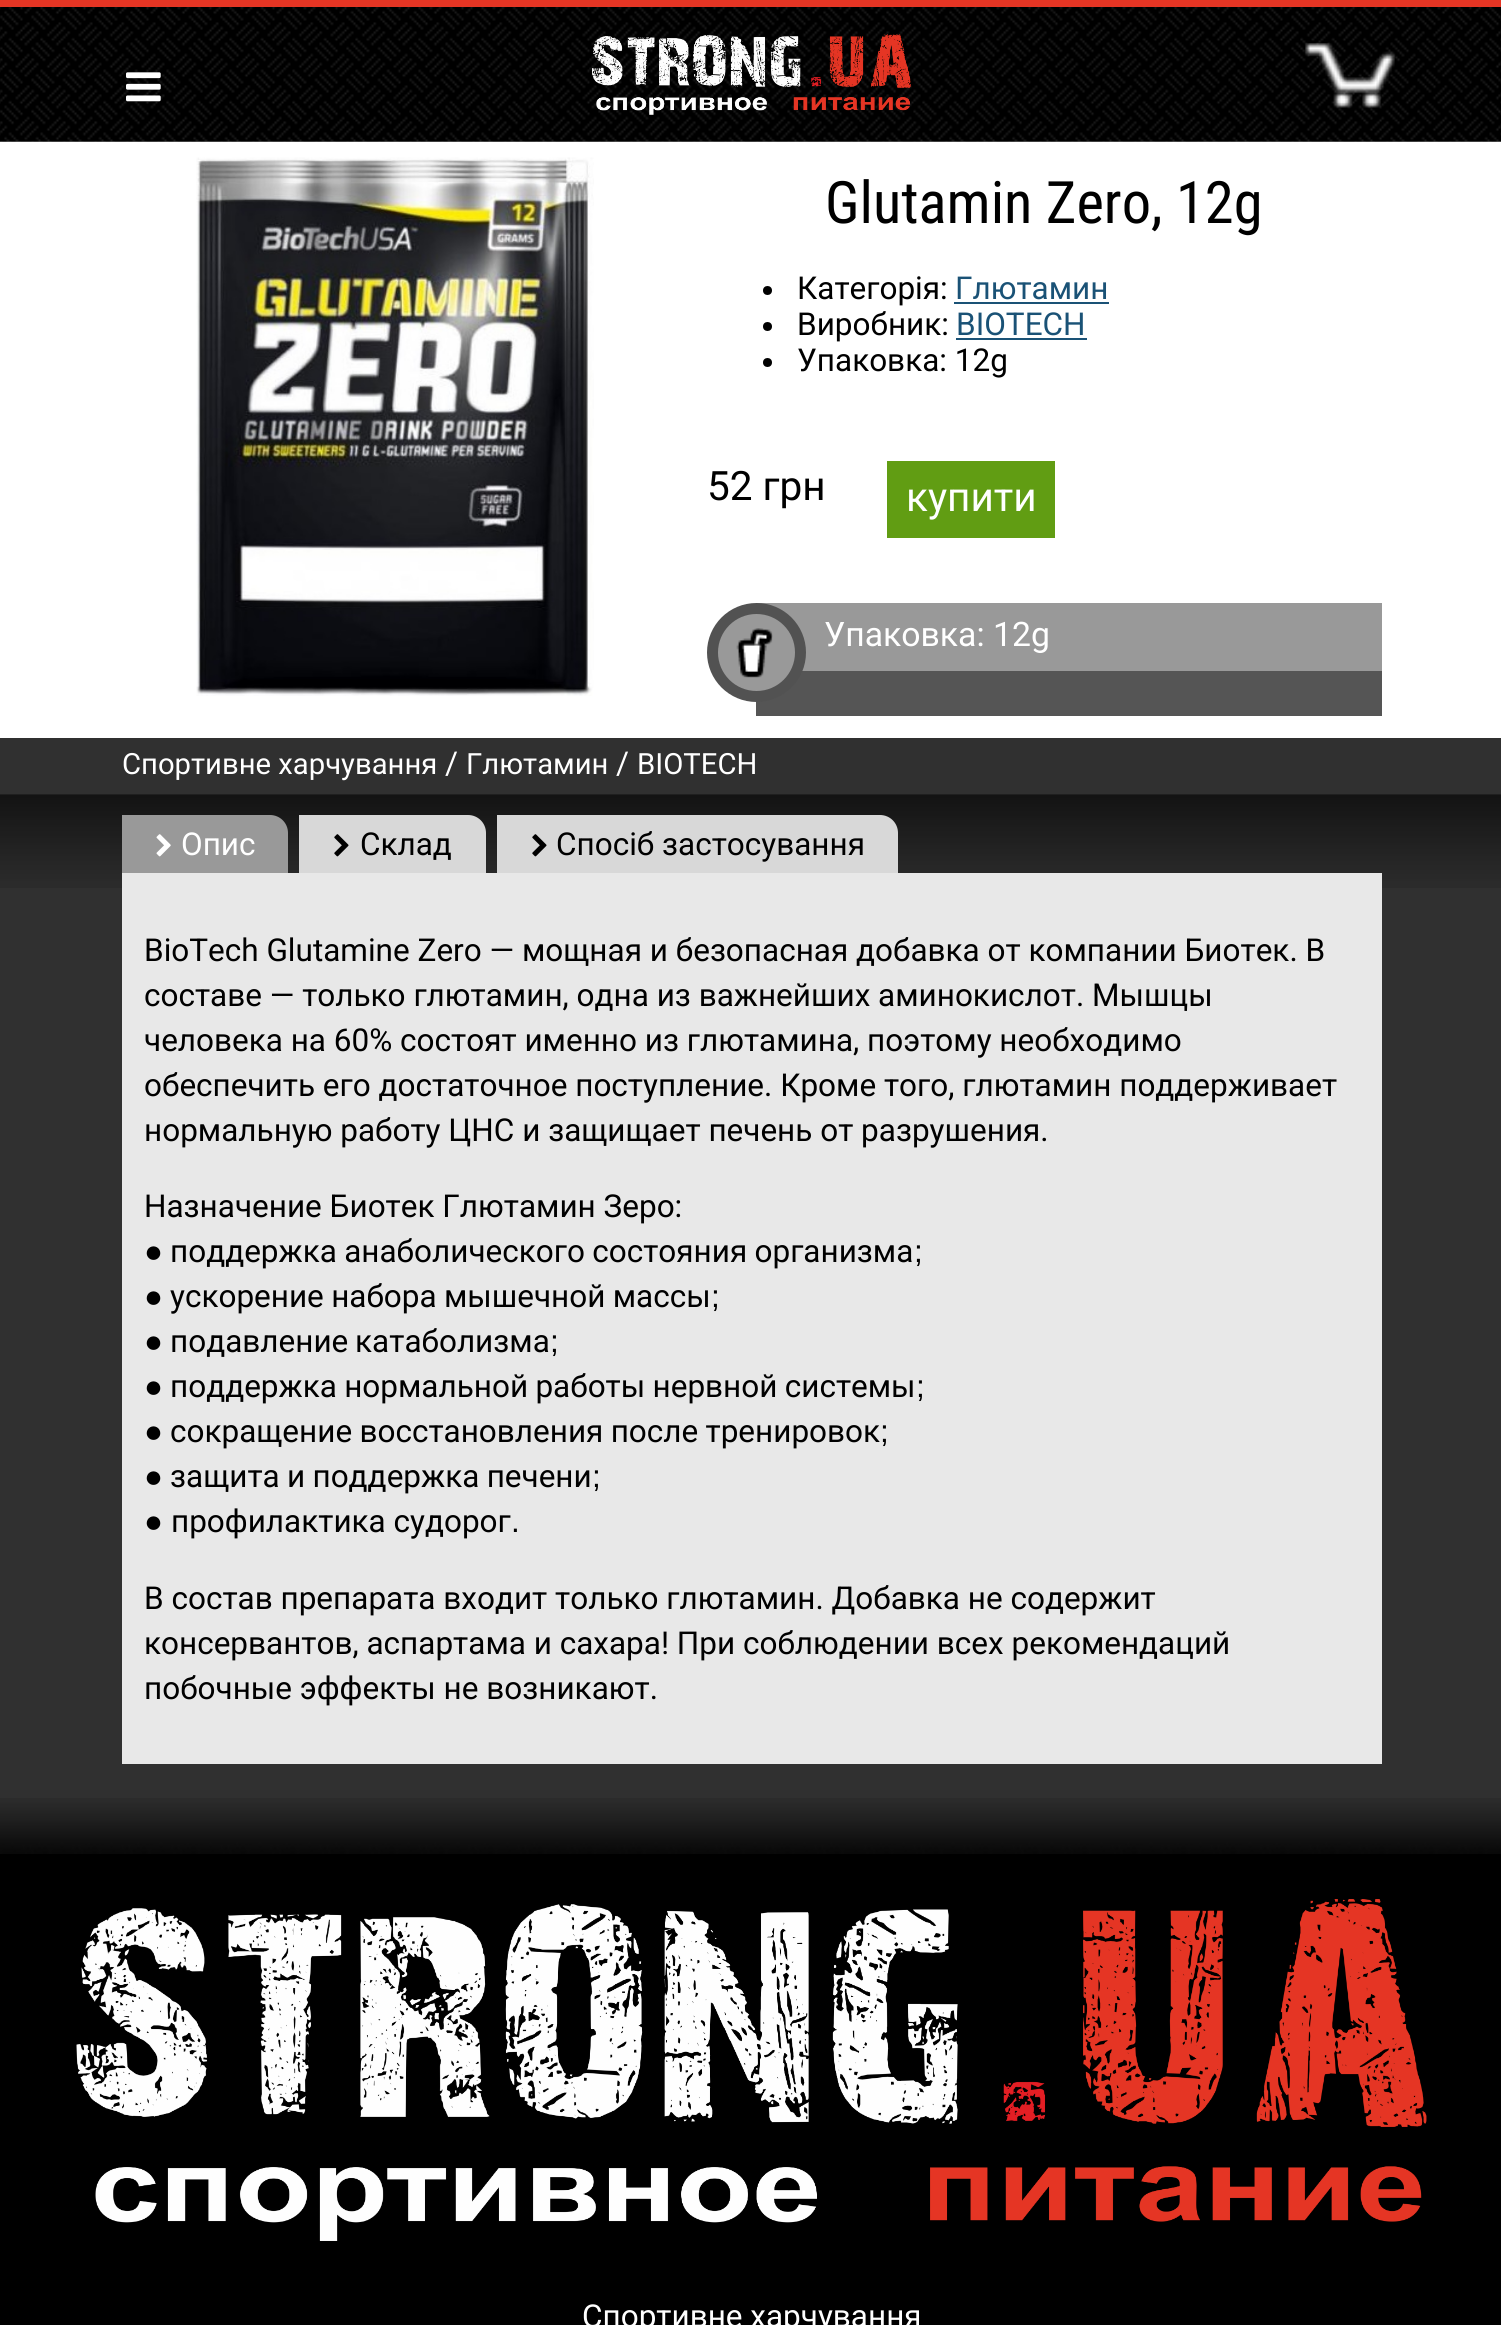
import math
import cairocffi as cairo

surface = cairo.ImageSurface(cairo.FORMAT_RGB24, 1501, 2325)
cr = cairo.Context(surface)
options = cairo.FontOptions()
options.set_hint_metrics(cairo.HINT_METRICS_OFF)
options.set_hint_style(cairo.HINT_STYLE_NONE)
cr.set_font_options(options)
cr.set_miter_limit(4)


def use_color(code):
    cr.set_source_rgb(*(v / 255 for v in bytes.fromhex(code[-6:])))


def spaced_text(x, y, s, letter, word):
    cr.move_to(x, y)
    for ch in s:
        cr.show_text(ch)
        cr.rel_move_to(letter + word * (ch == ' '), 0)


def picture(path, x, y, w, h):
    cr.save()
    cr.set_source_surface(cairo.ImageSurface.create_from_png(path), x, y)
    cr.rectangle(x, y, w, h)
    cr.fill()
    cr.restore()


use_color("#ffffff")
cr.paint()
picture("img1.png", 0, 7, 1501, 135)
use_color("#e53524")
cr.rectangle(0, 0, 1501, 7)
cr.fill()
picture("img2.png", 126, 72, 35, 30)
picture("img3.png", 592, 34, 319, 81)
picture("img4.png", 1305, 43, 90, 65)
picture("img5.png", 196, 157, 398, 539)
cr.select_font_face("Roboto Condensed")
cr.set_font_size(58.5)
use_color("#000000")
cr.move_to(825, 223)
cr.show_text("Glutamin Zero, 12g")
cr.new_path()
cr.arc(767.5, 290.5, 4.5, 0, 2 * math.pi)
cr.fill()
cr.select_font_face("Roboto")
cr.set_font_size(31.5)
cr.move_to(797, 299)
cr.show_text("Категорія:")
use_color("#1a5276")
cr.move_to(955, 299)
cr.show_text("Глютамин")
cr.rectangle(954, 302, 155, 2)
cr.fill()
use_color("#000000")
cr.arc(767.5, 326.5, 4.5, 0, 2 * math.pi)
cr.fill()
cr.move_to(797, 335)
cr.show_text("Виробник:")
use_color("#1a5276")
cr.move_to(956, 335)
cr.show_text("BIOTECH")
cr.rectangle(956, 338, 131, 2)
cr.fill()
use_color("#000000")
cr.arc(767.5, 362.5, 4.5, 0, 2 * math.pi)
cr.fill()
cr.move_to(797, 371)
cr.show_text("Упаковка: 12g")
cr.set_font_size(40.5)
cr.move_to(707, 500)
cr.show_text("52 грн")
use_color("#619d13")
cr.rectangle(887, 461, 168, 77)
cr.fill()
use_color("#ffffff")
cr.move_to(906, 511)
cr.show_text("купити")
use_color("#999999")
cr.rectangle(757, 603, 625, 68)
cr.fill()
use_color("#555555")
cr.rectangle(756, 671, 626, 45)
cr.fill()
use_color("#999999")
cr.arc(756.5, 652.5, 44, 0, 2 * math.pi)
cr.fill_preserve()
use_color("#525252")
cr.set_line_width(11)
cr.stroke()
picture("img6.png", 736, 628, 37, 50)
cr.set_font_size(33.75)
use_color("#ffffff")
cr.move_to(824, 646)
cr.show_text("Упаковка: 12g")
use_color("#303030")
cr.rectangle(0, 738, 1501, 1060)
cr.fill()
cr.set_font_size(29.25)
use_color("#ffffff")
cr.move_to(122, 774)
cr.show_text("Спортивне харчування")
cr.set_font_size(31.5)
cr.move_to(445, 774)
cr.show_text("/")
cr.set_font_size(29.25)
cr.move_to(466, 774)
cr.show_text("Глютамин")
cr.set_font_size(31.5)
cr.move_to(616, 774)
cr.show_text("/")
cr.set_font_size(29.25)
cr.move_to(637, 774)
cr.show_text("BIOTECH")
picture("img7.png", 0, 794, 1501, 94)
picture("img8.png", 0, 1798, 1501, 56)
use_color("#999999")
cr.new_path()
cr.move_to(122, 815)
cr.line_to(270, 815)
cr.curve_to(280, 815, 288, 823, 288, 833)
cr.line_to(288, 873)
cr.line_to(122, 873)
cr.close_path()
cr.fill()
picture("img9.png", 156, 834, 15, 23)
cr.set_font_size(31.5)
use_color("#ffffff")
cr.move_to(181, 855)
cr.show_text("Опис")
use_color("#d8d8d8")
cr.new_path()
cr.move_to(299, 815)
cr.line_to(468, 815)
cr.curve_to(478, 815, 486, 823, 486, 833)
cr.line_to(486, 873)
cr.line_to(299, 873)
cr.close_path()
cr.fill()
picture("img10.png", 334, 834, 15, 23)
use_color("#000000")
cr.move_to(360, 855)
cr.show_text("Склад")
use_color("#d8d8d8")
cr.new_path()
cr.move_to(497, 815)
cr.line_to(880, 815)
cr.curve_to(890, 815, 898, 823, 898, 833)
cr.line_to(898, 873)
cr.line_to(497, 873)
cr.close_path()
cr.fill()
picture("img10.png", 532, 834, 15, 23)
use_color("#000000")
cr.move_to(556, 855)
cr.show_text("Спосіб застосування")
use_color("#e8e8e8")
cr.rectangle(122, 873, 1260, 891)
cr.fill()
use_color("#000000")
cr.move_to(144, 961)
cr.show_text("BioTech Glutamine Zero — мощная и безопасная добавка от компании Биотек. В")
cr.move_to(144, 1006)
cr.show_text("составе — только глютамин, одна из важнейших аминокислот. Мышцы")
cr.move_to(144, 1051)
cr.show_text("человека на 60% состоят именно из глютамина, поэтому необходимо")
cr.move_to(144, 1096)
cr.show_text("обеспечить его достаточное поступление. Кроме того, глютамин поддерживает")
cr.move_to(144, 1141)
cr.show_text("нормальную работу ЦНС и защищает печень от разрушения.")
cr.move_to(144, 1217)
cr.show_text("Назначение Биотек Глютамин Зеро:")
cr.select_font_face("Liberation Sans")
cr.move_to(144, 1262)
cr.show_text("●")
cr.select_font_face("Roboto")
spaced_text(170, 1262, "поддержка анаболического состояния организма", 0, -0.5)
cr.select_font_face("Liberation Sans")
cr.move_to(914, 1262)
cr.show_text(";")
cr.move_to(144, 1307)
cr.show_text("●")
cr.select_font_face("Roboto")
spaced_text(170, 1307, "ускорение набора мышечной массы", 0, -0.5)
cr.select_font_face("Liberation Sans")
cr.move_to(711, 1307)
cr.show_text(";")
cr.move_to(144, 1352)
cr.show_text("●")
cr.select_font_face("Roboto")
spaced_text(170, 1352, "подавление катаболизма", 0, -1)
cr.select_font_face("Liberation Sans")
cr.move_to(550, 1352)
cr.show_text(";")
cr.move_to(144, 1397)
cr.show_text("●")
cr.select_font_face("Roboto")
spaced_text(170, 1397, "поддержка нормальной работы нервной системы", 0, -0.5)
cr.select_font_face("Liberation Sans")
cr.move_to(916, 1397)
cr.show_text(";")
cr.move_to(144, 1442)
cr.show_text("●")
cr.select_font_face("Roboto")
spaced_text(170, 1442, "сокращение восстановления после тренировок", 0, -0.5)
cr.select_font_face("Liberation Sans")
cr.move_to(880, 1442)
cr.show_text(";")
cr.move_to(144, 1487)
cr.show_text("●")
cr.select_font_face("Roboto")
spaced_text(170, 1487, "защита и поддержка печени", 0, -0.5)
cr.select_font_face("Liberation Sans")
cr.move_to(592, 1487)
cr.show_text(";")
cr.move_to(144, 1532)
cr.show_text("●")
cr.select_font_face("Roboto")
cr.move_to(171, 1532)
cr.show_text("профилактика судорог")
cr.select_font_face("Liberation Sans")
cr.move_to(511, 1532)
cr.show_text(".")
cr.select_font_face("Roboto")
cr.move_to(144, 1609)
cr.show_text("В состав препарата входит только глютамин. Добавка не содержит")
cr.move_to(144, 1654)
cr.show_text("консервантов, аспартама и сахара! При соблюдении всех рекомендаций")
cr.move_to(144, 1699)
cr.show_text("побочные эффекты не возникают.")
cr.rectangle(0, 1854, 1501, 471)
cr.fill()
picture("img11.png", 76, 1899, 1351, 342)
use_color("#ffffff")
cr.move_to(582, 2327)
cr.show_text("Спортивне харчування")
surface.write_to_png("result.png")
